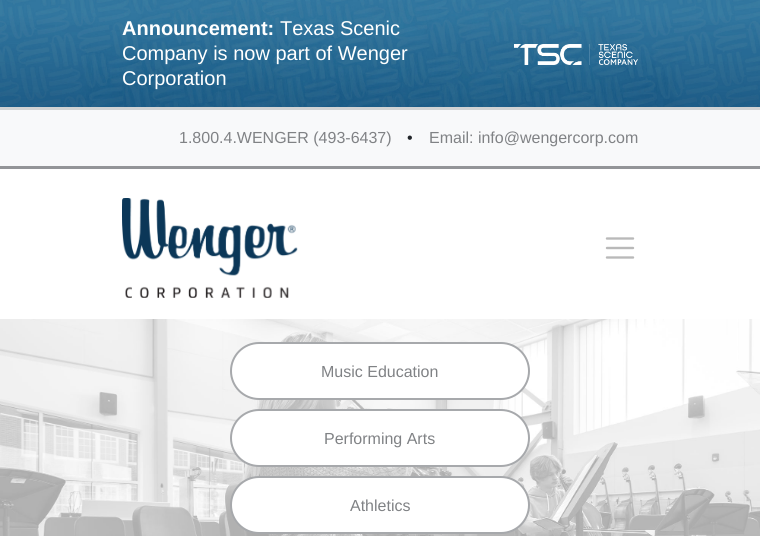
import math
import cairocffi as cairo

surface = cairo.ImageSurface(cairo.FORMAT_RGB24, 760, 536)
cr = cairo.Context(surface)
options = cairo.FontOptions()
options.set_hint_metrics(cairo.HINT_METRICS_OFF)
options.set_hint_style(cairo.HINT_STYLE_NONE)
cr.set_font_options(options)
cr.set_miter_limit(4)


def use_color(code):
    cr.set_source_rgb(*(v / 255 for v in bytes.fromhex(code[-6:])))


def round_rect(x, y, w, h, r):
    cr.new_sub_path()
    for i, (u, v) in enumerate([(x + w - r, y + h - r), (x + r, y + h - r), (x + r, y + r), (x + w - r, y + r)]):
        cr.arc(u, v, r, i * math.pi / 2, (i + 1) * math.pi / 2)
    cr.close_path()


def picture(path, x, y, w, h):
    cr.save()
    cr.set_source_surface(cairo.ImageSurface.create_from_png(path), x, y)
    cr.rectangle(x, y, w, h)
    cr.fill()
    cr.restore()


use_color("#ffffff")
cr.paint()
picture("img1.png", 0, 0, 760, 107)
cr.select_font_face("Liberation Sans", cairo.FONT_SLANT_NORMAL, cairo.FONT_WEIGHT_BOLD)
cr.set_font_size(20)
use_color("#ffffff")
cr.move_to(122, 35)
cr.show_text("Announcement:")
cr.select_font_face("Liberation Sans")
cr.move_to(280, 35)
cr.show_text("Texas Scenic")
cr.move_to(122, 60)
cr.show_text("Company is now part of Wenger")
cr.move_to(122, 85)
cr.show_text("Corporation")
picture("img2.png", 514, 44, 124, 21)
use_color("#f8f9fa")
cr.rectangle(0, 110, 760, 56)
cr.fill()
use_color("#d1d3d4")
cr.rectangle(0, 107, 760, 3)
cr.fill()
use_color("#939598")
cr.rectangle(0, 166, 760, 3)
cr.fill()
cr.set_font_size(16)
use_color("#808285")
cr.move_to(179, 143)
cr.show_text("1.800.4.WENGER (493-6437)")
use_color("#212529")
cr.move_to(407, 143)
cr.show_text("•")
use_color("#808285")
cr.move_to(429, 143)
cr.show_text("Email: info@wengercorp.com")
picture("img3.png", 122, 198, 176, 100)
cr.new_path()
cr.move_to(607, 238.5)
cr.line_to(633, 238.5)
cr.move_to(607, 248)
cr.line_to(633, 248)
cr.move_to(607, 257.5)
cr.line_to(633, 257.5)
use_color("#b9b9b9")
cr.set_line_width(2.4)
cr.set_line_cap(cairo.LINE_CAP_ROUND)
cr.stroke()
picture("img4.png", 0, 319, 760, 217)
use_color("#ffffff")
round_rect(231, 343, 298, 56, 28)
cr.fill_preserve()
use_color("#a7a9ac")
cr.set_line_width(2)
cr.set_line_cap(cairo.LINE_CAP_BUTT)
cr.stroke()
use_color("#808285")
cr.move_to(321, 377)
cr.show_text("Music Education")
use_color("#ffffff")
round_rect(231, 410, 298, 56, 28)
cr.fill_preserve()
use_color("#a7a9ac")
cr.stroke()
use_color("#808285")
cr.move_to(324, 444)
cr.show_text("Performing Arts")
use_color("#ffffff")
round_rect(231, 477, 298, 56, 28)
cr.fill_preserve()
use_color("#a7a9ac")
cr.stroke()
use_color("#808285")
cr.move_to(350, 511)
cr.show_text("Athletics")
surface.write_to_png("result.png")
